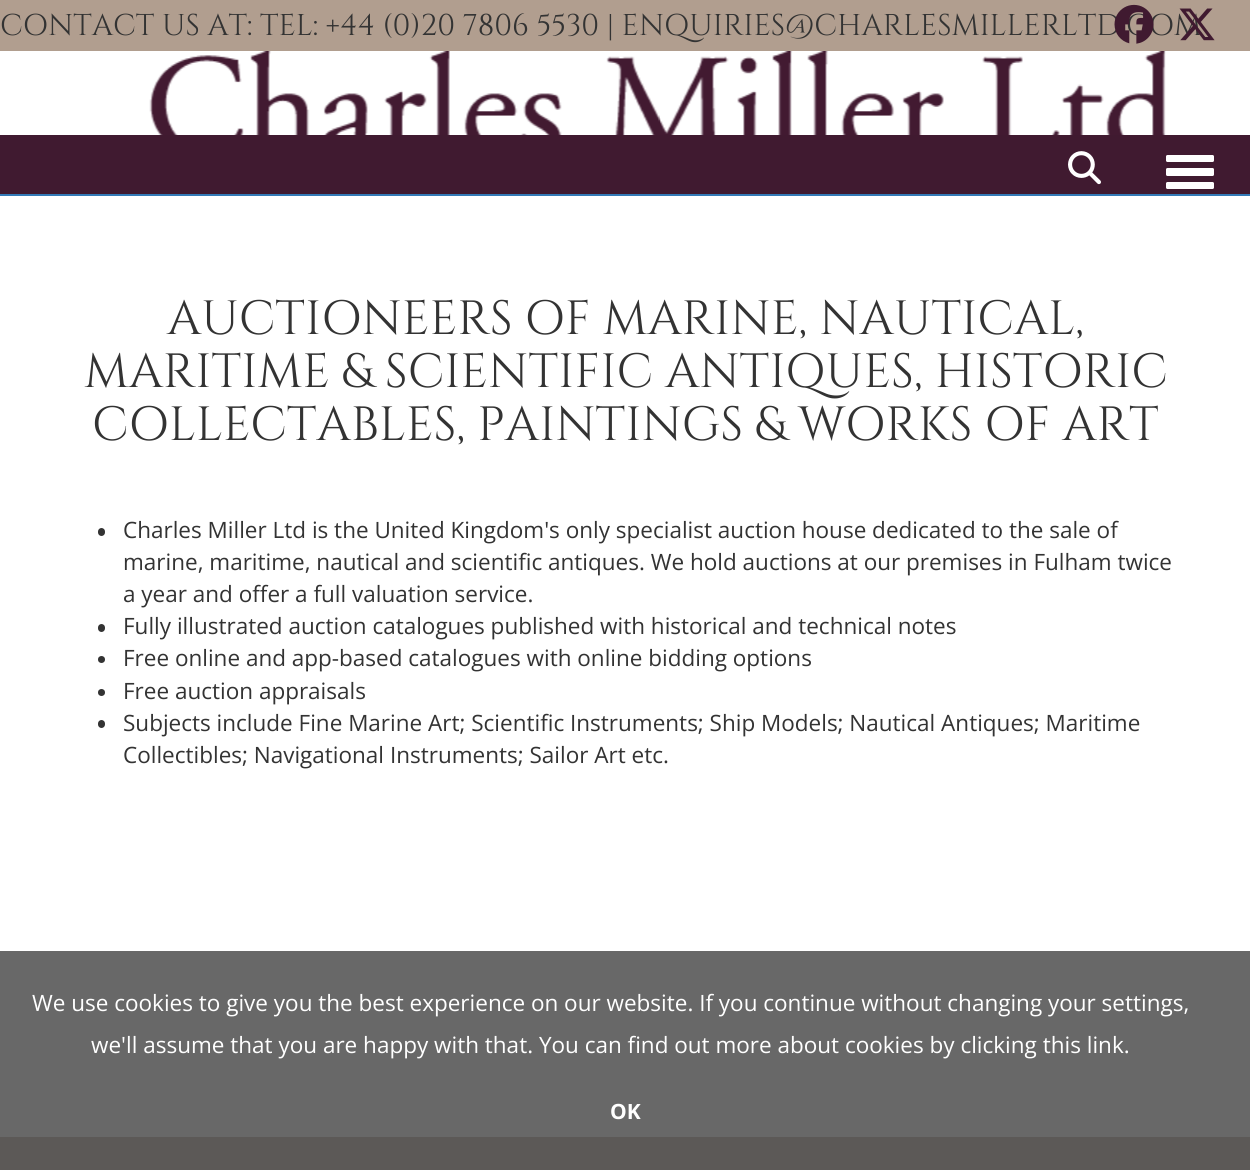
import math
import cairocffi as cairo

surface = cairo.ImageSurface(cairo.FORMAT_RGB24, 1250, 1170)
cr = cairo.Context(surface)
options = cairo.FontOptions()
options.set_hint_metrics(cairo.HINT_METRICS_OFF)
options.set_hint_style(cairo.HINT_STYLE_NONE)
cr.set_font_options(options)
cr.set_miter_limit(4)


def use_color(code):
    cr.set_source_rgb(*(v / 255 for v in bytes.fromhex(code[-6:])))


def round_rect(x, y, w, h, r):
    cr.new_sub_path()
    for i, (u, v) in enumerate([(x + w - r, y + h - r), (x + r, y + h - r), (x + r, y + r), (x + w - r, y + r)]):
        cr.arc(u, v, r, i * math.pi / 2, (i + 1) * math.pi / 2)
    cr.close_path()


def picture(path, x, y, w, h):
    cr.save()
    cr.set_source_surface(cairo.ImageSurface.create_from_png(path), x, y)
    cr.rectangle(x, y, w, h)
    cr.fill()
    cr.restore()


use_color("#ffffff")
cr.paint()
use_color("#686868")
cr.rectangle(0, 951, 1250, 186)
cr.fill()
use_color("#b19e8f")
cr.rectangle(0, 0, 1250, 51)
cr.fill()
cr.select_font_face("Cinzel")
cr.set_font_size(30)
use_color("#333333")
cr.move_to(0, 35)
cr.show_text("CONTACT US AT: TEL: +44 (0)20 7806 5530 | ENQUIRIES@CHARLESMILLERLTD.COM")
picture("img1.png", 1114, 4, 40, 40)
picture("img2.png", 1179, 8, 36, 33)
picture("img3.png", 149, 51, 1017, 84)
use_color("#401a30")
cr.rectangle(0, 135, 1250, 59)
cr.fill()
use_color("#337ab7")
cr.rectangle(0, 194, 1250, 2)
cr.fill()
picture("img4.png", 1068, 151, 33, 34)
use_color("#ffffff")
round_rect(1166, 155, 48, 7, 1.5)
cr.fill()
round_rect(1166, 168, 48, 8, 1.5)
cr.fill()
round_rect(1166, 182, 48, 7, 1.5)
cr.fill()
cr.set_font_size(48)
use_color("#333333")
cr.move_to(167, 334)
cr.show_text("AUCTIONEERS OF MARINE, NAUTICAL,")
cr.move_to(84, 387)
cr.show_text("MARITIME & SCIENTIFIC ANTIQUES, HISTORIC")
cr.move_to(92, 440)
cr.show_text("COLLECTABLES, PAINTINGS & WORKS OF ART")
round_rect(98, 528, 7, 8, 3.5)
cr.fill()
cr.select_font_face("Open Sans")
cr.set_font_size(22.5)
cr.move_to(123, 538)
cr.show_text("Charles Miller Ltd is the United Kingdom's only specialist auction house dedicated to the sale of")
cr.move_to(123, 570)
cr.show_text("marine, maritime, nautical and scientific antiques. We hold auctions at our premises in Fulham twice")
cr.move_to(123, 602)
cr.show_text("a year and offer a full valuation service.")
round_rect(98, 624, 7, 8, 3.5)
cr.fill()
cr.move_to(123, 634)
cr.show_text("Fully illustrated auction catalogues published with historical and technical notes")
cr.new_path()
cr.arc(101.5, 659.5, 3.5, 0, 2 * math.pi)
cr.fill()
cr.move_to(123, 666)
cr.show_text("Free online and app-based catalogues with online bidding options")
cr.new_path()
cr.arc(101.5, 692.5, 3.5, 0, 2 * math.pi)
cr.fill()
cr.move_to(123, 699)
cr.show_text("Free auction appraisals")
round_rect(98, 720, 7, 8, 3.5)
cr.fill()
cr.move_to(123, 731)
cr.show_text("Subjects include Fine Marine Art; Scientific Instruments; Ship Models; Nautical Antiques; Maritime")
cr.move_to(123, 763)
cr.show_text("Collectibles; Navigational Instruments; Sailor Art etc.")
use_color("#ffffff")
cr.move_to(32, 1011)
cr.show_text("We use cookies to give you the best experience on our website. If you continue without changing your settings,")
cr.move_to(91, 1053)
cr.show_text("we'll assume that you are happy with that. You can find out more about cookies by clicking this link.")
cr.select_font_face("Open Sans", cairo.FONT_SLANT_NORMAL, cairo.FONT_WEIGHT_BOLD)
cr.set_font_size(21)
cr.move_to(610, 1119)
cr.show_text("OK")
use_color("#5c5957")
cr.rectangle(0, 1137, 1250, 33)
cr.fill()
surface.write_to_png("result.png")
